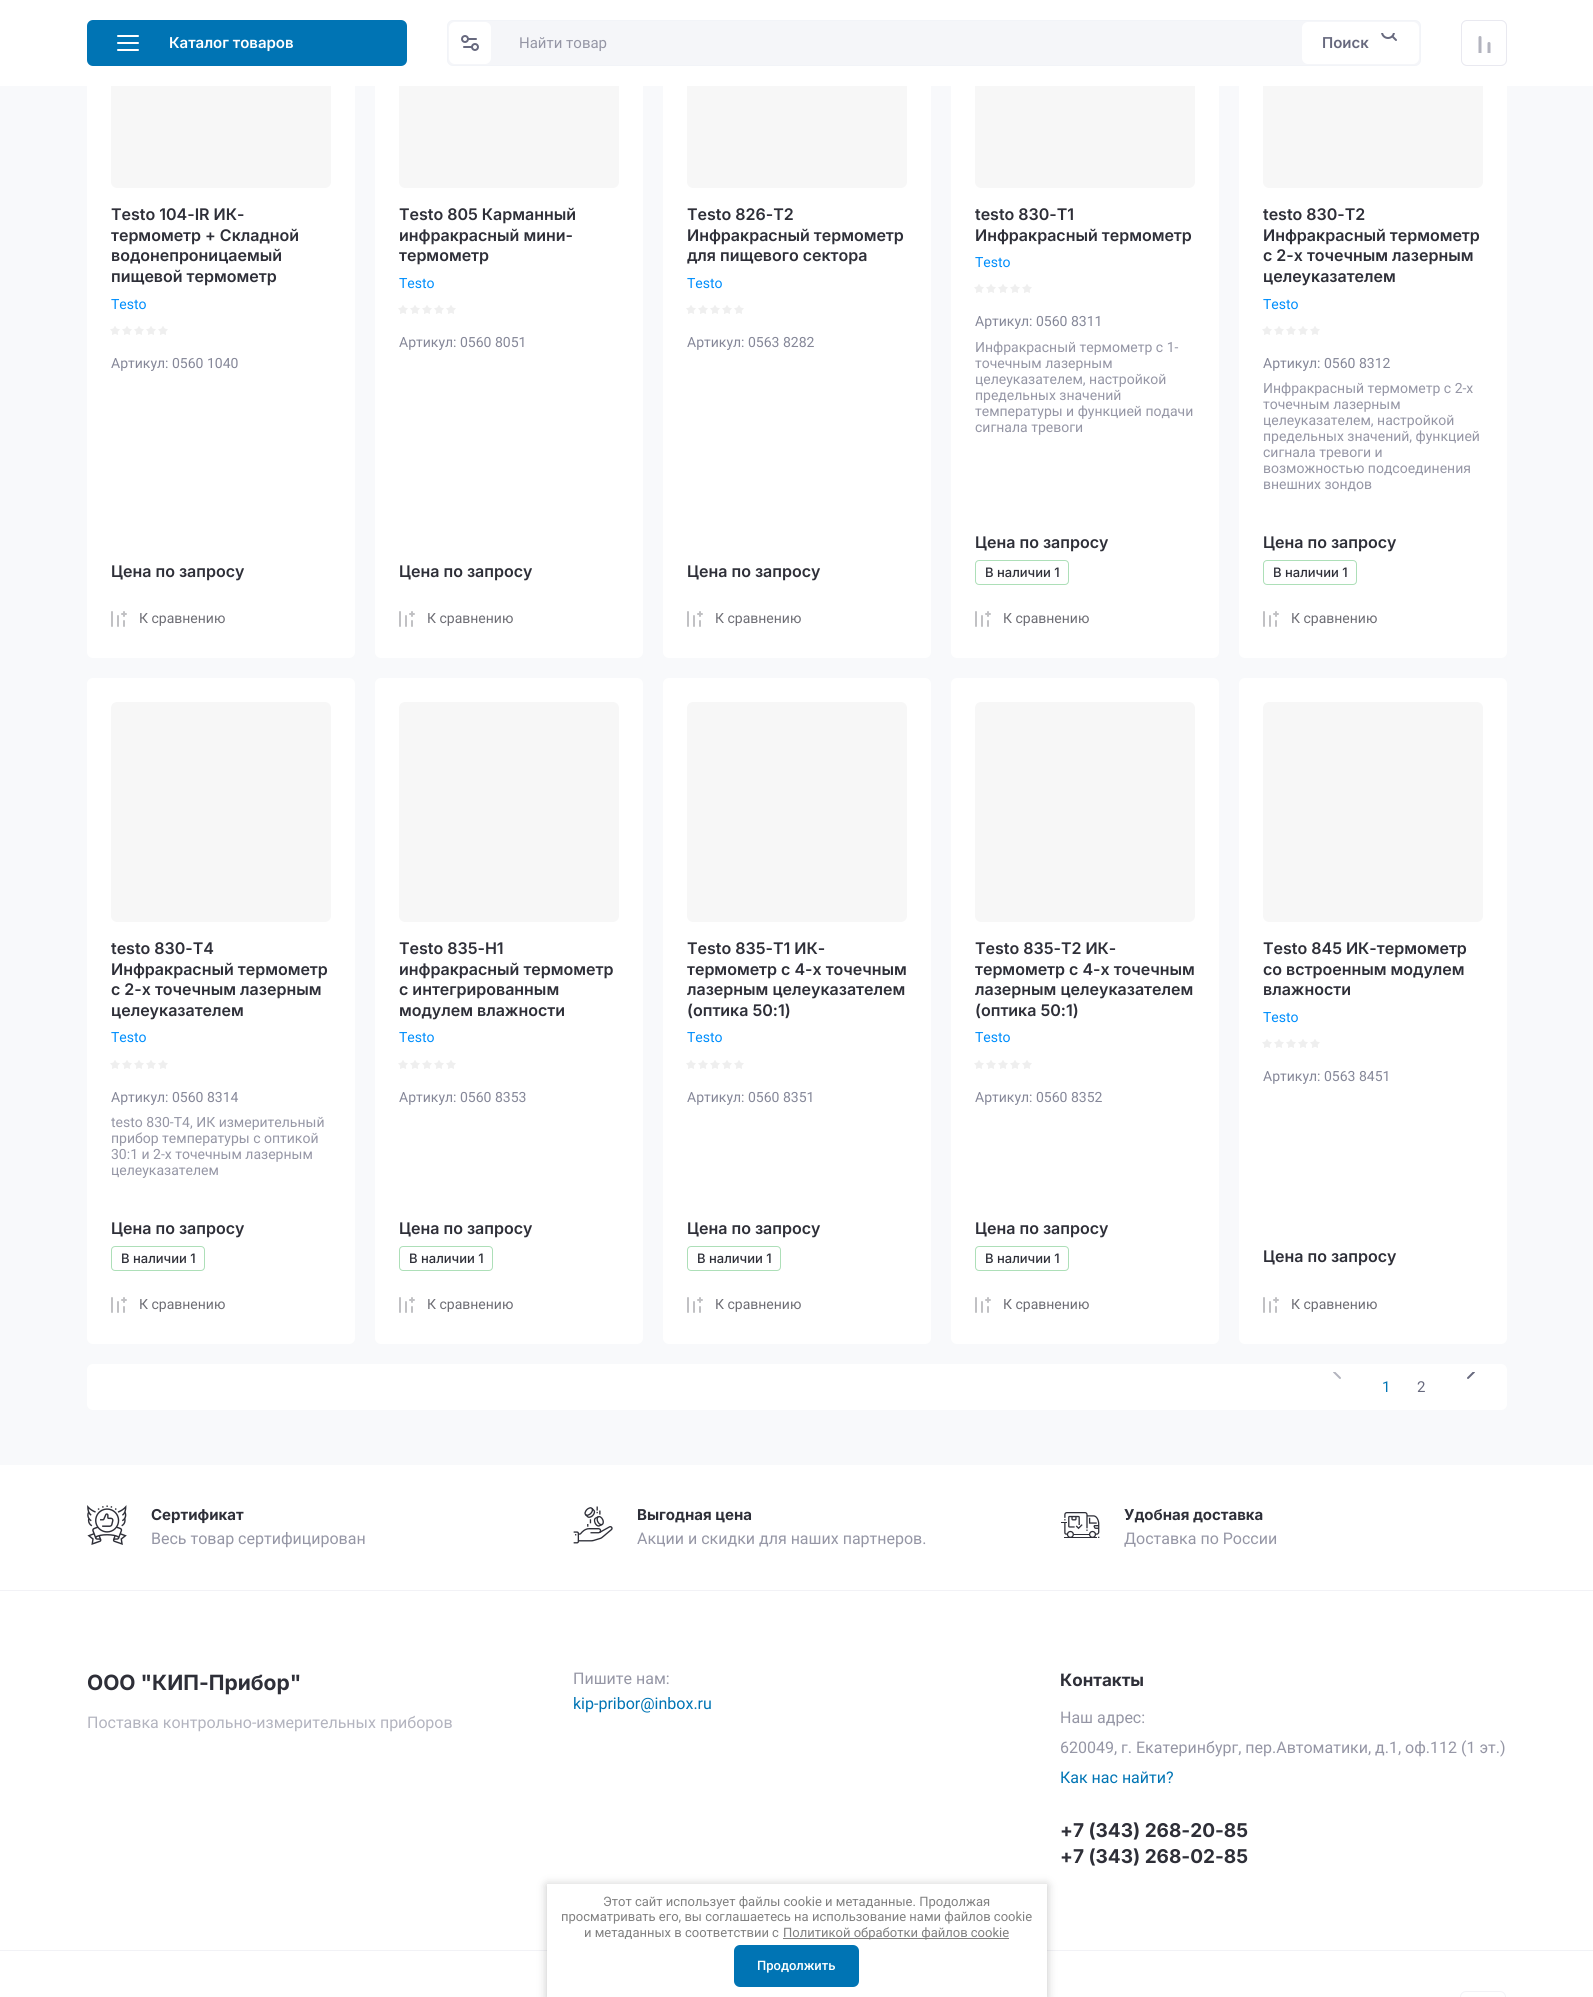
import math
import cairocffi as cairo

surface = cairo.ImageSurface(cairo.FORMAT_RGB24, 1593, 1997)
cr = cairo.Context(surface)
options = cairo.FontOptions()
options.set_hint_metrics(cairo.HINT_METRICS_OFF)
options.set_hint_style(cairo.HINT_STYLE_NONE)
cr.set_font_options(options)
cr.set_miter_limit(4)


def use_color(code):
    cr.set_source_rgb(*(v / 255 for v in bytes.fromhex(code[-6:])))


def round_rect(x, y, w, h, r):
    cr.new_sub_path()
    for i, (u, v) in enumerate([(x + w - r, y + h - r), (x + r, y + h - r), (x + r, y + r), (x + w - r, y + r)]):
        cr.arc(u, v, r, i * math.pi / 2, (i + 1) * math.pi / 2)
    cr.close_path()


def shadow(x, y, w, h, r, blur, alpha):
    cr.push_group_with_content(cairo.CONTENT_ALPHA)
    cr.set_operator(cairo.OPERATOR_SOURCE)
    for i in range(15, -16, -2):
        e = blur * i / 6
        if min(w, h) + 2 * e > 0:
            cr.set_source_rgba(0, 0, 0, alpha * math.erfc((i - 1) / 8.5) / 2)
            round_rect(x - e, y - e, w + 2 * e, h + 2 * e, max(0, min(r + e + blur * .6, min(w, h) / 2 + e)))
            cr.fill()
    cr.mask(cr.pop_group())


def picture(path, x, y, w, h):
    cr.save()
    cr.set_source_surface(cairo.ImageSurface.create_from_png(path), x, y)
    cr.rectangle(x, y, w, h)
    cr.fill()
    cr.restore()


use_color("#f8f9fb")
cr.paint()
use_color("#ffffff")
round_rect(87, -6, 268, 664, 6)
cr.fill()
use_color("#f7f7f7")
round_rect(111, -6, 220, 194, 6)
cr.fill()
use_color("#ffffff")
round_rect(375, -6, 268, 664, 6)
cr.fill()
use_color("#f7f7f7")
round_rect(399, -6, 220, 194, 6)
cr.fill()
use_color("#ffffff")
round_rect(663, -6, 268, 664, 6)
cr.fill()
use_color("#f7f7f7")
round_rect(687, -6, 220, 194, 6)
cr.fill()
use_color("#ffffff")
round_rect(951, -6, 268, 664, 6)
cr.fill()
use_color("#f7f7f7")
round_rect(975, -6, 220, 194, 6)
cr.fill()
use_color("#ffffff")
round_rect(1239, -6, 268, 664, 6)
cr.fill()
use_color("#f7f7f7")
round_rect(1263, -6, 220, 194, 6)
cr.fill()
use_color("#ffffff")
cr.rectangle(0, 0, 1593, 86)
cr.fill()
use_color("#0074b4")
round_rect(87, 20, 320, 46, 6)
cr.fill()
picture("img1.png", 117, 35, 22, 16)
cr.select_font_face("Inter SemiBold")
cr.set_font_size(15)
use_color("#ffffff")
cr.move_to(169, 48)
cr.show_text("Каталог товаров")
use_color("#f5f6f9")
round_rect(447.5, 20.5, 973, 45, 5.5)
cr.fill_preserve()
use_color("#f2f4f8")
cr.set_line_width(1)
cr.stroke()
use_color("#ffffff")
round_rect(449, 22, 42, 42, 6)
cr.fill()
picture("img2.png", 461, 35, 18, 16)
cr.select_font_face("Roboto")
use_color("#9596a5")
cr.move_to(519, 48)
cr.show_text("Найти товар")
use_color("#ffffff")
round_rect(1302, 22, 117, 42, 6)
cr.fill()
cr.select_font_face("Inter SemiBold")
use_color("#67697e")
cr.move_to(1322, 48)
cr.show_text("Поиск")
picture("img3.png", 1381, 33, 16, 8)
round_rect(1461.5, 20.5, 45, 45, 5.5)
use_color("#f2f2f6")
cr.stroke()
round_rect(1461.5, 20.5, 45, 45, 5.5)
cr.set_source_rgba(0.824, 0.827, 0.878, 0.3)
cr.stroke()
picture("img4.png", 1478, 36, 13, 17)
cr.set_font_size(16)
use_color("#2e2f38")
cr.move_to(111, 220)
cr.show_text("Testo 104-IR ИК-")
cr.move_to(111, 241)
cr.show_text("термометр + Складной")
cr.move_to(111, 261)
cr.show_text("водонепроницаемый")
cr.move_to(111, 282)
cr.show_text("пищевой термометр")
cr.select_font_face("Roboto")
cr.set_font_size(14)
use_color("#008efc")
cr.move_to(111, 309)
cr.show_text("Testo")
picture("img5.png", 110, 326, 58, 9)
use_color("#858798")
cr.move_to(111, 368)
cr.show_text("Артикул: 0560 1040")
cr.select_font_face("Inter SemiBold")
cr.set_font_size(16)
use_color("#2e2f38")
cr.move_to(111, 577)
cr.show_text("Цена по запросу")
picture("img6.png", 111, 611, 16, 16)
cr.select_font_face("Roboto")
cr.set_font_size(14)
use_color("#6d6d74")
cr.move_to(139, 623)
cr.show_text("К сравнению")
cr.select_font_face("Inter SemiBold")
cr.set_font_size(16)
use_color("#2e2f38")
cr.move_to(399, 220)
cr.show_text("Testo 805 Карманный")
cr.move_to(399, 241)
cr.show_text("инфракрасный мини-")
cr.move_to(399, 261)
cr.show_text("термометр")
cr.select_font_face("Roboto")
cr.set_font_size(14)
use_color("#008efc")
cr.move_to(399, 288)
cr.show_text("Testo")
picture("img5.png", 398, 305, 58, 9)
use_color("#858798")
cr.move_to(399, 347)
cr.show_text("Артикул: 0560 8051")
cr.select_font_face("Inter SemiBold")
cr.set_font_size(16)
use_color("#2e2f38")
cr.move_to(399, 577)
cr.show_text("Цена по запросу")
picture("img6.png", 399, 611, 16, 16)
cr.select_font_face("Roboto")
cr.set_font_size(14)
use_color("#6d6d74")
cr.move_to(427, 623)
cr.show_text("К сравнению")
cr.select_font_face("Inter SemiBold")
cr.set_font_size(16)
use_color("#2e2f38")
cr.move_to(687, 220)
cr.show_text("Testo 826-T2")
cr.move_to(687, 241)
cr.show_text("Инфракрасный термометр")
cr.move_to(687, 261)
cr.show_text("для пищевого сектора")
cr.select_font_face("Roboto")
cr.set_font_size(14)
use_color("#008efc")
cr.move_to(687, 288)
cr.show_text("Testo")
picture("img5.png", 686, 305, 58, 9)
use_color("#858798")
cr.move_to(687, 347)
cr.show_text("Артикул: 0563 8282")
cr.select_font_face("Inter SemiBold")
cr.set_font_size(16)
use_color("#2e2f38")
cr.move_to(687, 577)
cr.show_text("Цена по запросу")
picture("img6.png", 687, 611, 16, 16)
cr.select_font_face("Roboto")
cr.set_font_size(14)
use_color("#6d6d74")
cr.move_to(715, 623)
cr.show_text("К сравнению")
cr.select_font_face("Inter SemiBold")
cr.set_font_size(16)
use_color("#2e2f38")
cr.move_to(975, 220)
cr.show_text("testo 830-T1")
cr.move_to(975, 241)
cr.show_text("Инфракрасный термометр")
cr.select_font_face("Roboto")
cr.set_font_size(14)
use_color("#008efc")
cr.move_to(975, 267)
cr.show_text("Testo")
picture("img5.png", 974, 284, 58, 9)
use_color("#858798")
cr.move_to(975, 326)
cr.show_text("Артикул: 0560 8311")
use_color("#9596a5")
cr.move_to(975, 352)
cr.show_text("Инфракрасный термометр с 1-")
cr.move_to(975, 368)
cr.show_text("точечным лазерным")
cr.move_to(975, 384)
cr.show_text("целеуказателем, настройкой")
cr.move_to(975, 400)
cr.show_text("предельных значений")
cr.move_to(975, 416)
cr.show_text("температуры и функцией подачи")
cr.move_to(975, 432)
cr.show_text("сигнала тревоги")
cr.select_font_face("Inter SemiBold")
cr.set_font_size(16)
use_color("#2e2f38")
cr.move_to(975, 548)
cr.show_text("Цена по запросу")
round_rect(975.5, 560.5, 93, 24, 3.5)
use_color("#addfb8")
cr.stroke()
cr.select_font_face("Inter Medium")
cr.set_font_size(13)
use_color("#2e2f38")
cr.move_to(985, 577)
cr.show_text("В наличии 1")
picture("img6.png", 975, 611, 16, 16)
cr.select_font_face("Roboto")
cr.set_font_size(14)
use_color("#6d6d74")
cr.move_to(1003, 623)
cr.show_text("К сравнению")
cr.select_font_face("Inter SemiBold")
cr.set_font_size(16)
use_color("#2e2f38")
cr.move_to(1263, 220)
cr.show_text("testo 830-T2")
cr.move_to(1263, 241)
cr.show_text("Инфракрасный термометр")
cr.move_to(1263, 261)
cr.show_text("с 2-х точечным лазерным")
cr.move_to(1263, 282)
cr.show_text("целеуказателем")
cr.select_font_face("Roboto")
cr.set_font_size(14)
use_color("#008efc")
cr.move_to(1263, 309)
cr.show_text("Testo")
picture("img5.png", 1262, 326, 58, 9)
use_color("#858798")
cr.move_to(1263, 368)
cr.show_text("Артикул: 0560 8312")
use_color("#9596a5")
cr.move_to(1263, 393)
cr.show_text("Инфракрасный термометр с 2-х")
cr.move_to(1263, 409)
cr.show_text("точечным лазерным")
cr.move_to(1263, 425)
cr.show_text("целеуказателем, настройкой")
cr.move_to(1263, 441)
cr.show_text("предельных значений, функцией")
cr.move_to(1263, 457)
cr.show_text("сигнала тревоги и")
cr.move_to(1263, 473)
cr.show_text("возможностью подсоединения")
cr.move_to(1263, 489)
cr.show_text("внешних зондов")
cr.select_font_face("Inter SemiBold")
cr.set_font_size(16)
use_color("#2e2f38")
cr.move_to(1263, 548)
cr.show_text("Цена по запросу")
round_rect(1263.5, 560.5, 93, 24, 3.5)
use_color("#addfb8")
cr.stroke()
cr.select_font_face("Inter Medium")
cr.set_font_size(13)
use_color("#2e2f38")
cr.move_to(1273, 577)
cr.show_text("В наличии 1")
picture("img6.png", 1263, 611, 16, 16)
cr.select_font_face("Roboto")
cr.set_font_size(14)
use_color("#6d6d74")
cr.move_to(1291, 623)
cr.show_text("К сравнению")
use_color("#ffffff")
round_rect(87, 678, 268, 666, 6)
cr.fill()
use_color("#f7f7f7")
round_rect(111, 702, 220, 220, 6)
cr.fill()
cr.select_font_face("Inter SemiBold")
cr.set_font_size(16)
use_color("#2e2f38")
cr.move_to(111, 954)
cr.show_text("testo 830-T4")
cr.move_to(111, 975)
cr.show_text("Инфракрасный термометр")
cr.move_to(111, 995)
cr.show_text("с 2-х точечным лазерным")
cr.move_to(111, 1016)
cr.show_text("целеуказателем")
cr.select_font_face("Roboto")
cr.set_font_size(14)
use_color("#008efc")
cr.move_to(111, 1042)
cr.show_text("Testo")
picture("img5.png", 110, 1060, 58, 9)
use_color("#858798")
cr.move_to(111, 1102)
cr.show_text("Артикул: 0560 8314")
use_color("#9596a5")
cr.move_to(111, 1127)
cr.show_text("testo 830-T4, ИК измерительный")
cr.move_to(111, 1143)
cr.show_text("прибор температуры с оптикой")
cr.move_to(111, 1159)
cr.show_text("30:1 и 2-х точечным лазерным")
cr.move_to(111, 1175)
cr.show_text("целеуказателем")
cr.select_font_face("Inter SemiBold")
cr.set_font_size(16)
use_color("#2e2f38")
cr.move_to(111, 1234)
cr.show_text("Цена по запросу")
round_rect(111.5, 1246.5, 93, 24, 3.5)
use_color("#addfb8")
cr.stroke()
cr.select_font_face("Inter Medium")
cr.set_font_size(13)
use_color("#2e2f38")
cr.move_to(121, 1263)
cr.show_text("В наличии 1")
picture("img6.png", 111, 1297, 16, 16)
cr.select_font_face("Roboto")
cr.set_font_size(14)
use_color("#6d6d74")
cr.move_to(139, 1309)
cr.show_text("К сравнению")
use_color("#ffffff")
round_rect(375, 678, 268, 666, 6)
cr.fill()
use_color("#f7f7f7")
round_rect(399, 702, 220, 220, 6)
cr.fill()
cr.select_font_face("Inter SemiBold")
cr.set_font_size(16)
use_color("#2e2f38")
cr.move_to(399, 954)
cr.show_text("Testo 835-H1")
cr.move_to(399, 975)
cr.show_text("инфракрасный термометр")
cr.move_to(399, 995)
cr.show_text("с интегрированным")
cr.move_to(399, 1016)
cr.show_text("модулем влажности")
cr.select_font_face("Roboto")
cr.set_font_size(14)
use_color("#008efc")
cr.move_to(399, 1042)
cr.show_text("Testo")
picture("img5.png", 398, 1060, 58, 9)
use_color("#858798")
cr.move_to(399, 1102)
cr.show_text("Артикул: 0560 8353")
cr.select_font_face("Inter SemiBold")
cr.set_font_size(16)
use_color("#2e2f38")
cr.move_to(399, 1234)
cr.show_text("Цена по запросу")
round_rect(399.5, 1246.5, 93, 24, 3.5)
use_color("#addfb8")
cr.stroke()
cr.select_font_face("Inter Medium")
cr.set_font_size(13)
use_color("#2e2f38")
cr.move_to(409, 1263)
cr.show_text("В наличии 1")
picture("img6.png", 399, 1297, 16, 16)
cr.select_font_face("Roboto")
cr.set_font_size(14)
use_color("#6d6d74")
cr.move_to(427, 1309)
cr.show_text("К сравнению")
use_color("#ffffff")
round_rect(663, 678, 268, 666, 6)
cr.fill()
use_color("#f7f7f7")
round_rect(687, 702, 220, 220, 6)
cr.fill()
cr.select_font_face("Inter SemiBold")
cr.set_font_size(16)
use_color("#2e2f38")
cr.move_to(687, 954)
cr.show_text("Testo 835-T1 ИК-")
cr.move_to(687, 975)
cr.show_text("термометр с 4-х точечным")
cr.move_to(687, 995)
cr.show_text("лазерным целеуказателем")
cr.move_to(687, 1016)
cr.show_text("(оптика 50:1)")
cr.select_font_face("Roboto")
cr.set_font_size(14)
use_color("#008efc")
cr.move_to(687, 1042)
cr.show_text("Testo")
picture("img5.png", 686, 1060, 58, 9)
use_color("#858798")
cr.move_to(687, 1102)
cr.show_text("Артикул: 0560 8351")
cr.select_font_face("Inter SemiBold")
cr.set_font_size(16)
use_color("#2e2f38")
cr.move_to(687, 1234)
cr.show_text("Цена по запросу")
round_rect(687.5, 1246.5, 93, 24, 3.5)
use_color("#addfb8")
cr.stroke()
cr.select_font_face("Inter Medium")
cr.set_font_size(13)
use_color("#2e2f38")
cr.move_to(697, 1263)
cr.show_text("В наличии 1")
picture("img6.png", 687, 1297, 16, 16)
cr.select_font_face("Roboto")
cr.set_font_size(14)
use_color("#6d6d74")
cr.move_to(715, 1309)
cr.show_text("К сравнению")
use_color("#ffffff")
round_rect(951, 678, 268, 666, 6)
cr.fill()
use_color("#f7f7f7")
round_rect(975, 702, 220, 220, 6)
cr.fill()
cr.select_font_face("Inter SemiBold")
cr.set_font_size(16)
use_color("#2e2f38")
cr.move_to(975, 954)
cr.show_text("Testo 835-T2 ИК-")
cr.move_to(975, 975)
cr.show_text("термометр с 4-х точечным")
cr.move_to(975, 995)
cr.show_text("лазерным целеуказателем")
cr.move_to(975, 1016)
cr.show_text("(оптика 50:1)")
cr.select_font_face("Roboto")
cr.set_font_size(14)
use_color("#008efc")
cr.move_to(975, 1042)
cr.show_text("Testo")
picture("img5.png", 974, 1060, 58, 9)
use_color("#858798")
cr.move_to(975, 1102)
cr.show_text("Артикул: 0560 8352")
cr.select_font_face("Inter SemiBold")
cr.set_font_size(16)
use_color("#2e2f38")
cr.move_to(975, 1234)
cr.show_text("Цена по запросу")
round_rect(975.5, 1246.5, 93, 24, 3.5)
use_color("#addfb8")
cr.stroke()
cr.select_font_face("Inter Medium")
cr.set_font_size(13)
use_color("#2e2f38")
cr.move_to(985, 1263)
cr.show_text("В наличии 1")
picture("img6.png", 975, 1297, 16, 16)
cr.select_font_face("Roboto")
cr.set_font_size(14)
use_color("#6d6d74")
cr.move_to(1003, 1309)
cr.show_text("К сравнению")
use_color("#ffffff")
round_rect(1239, 678, 268, 666, 6)
cr.fill()
use_color("#f7f7f7")
round_rect(1263, 702, 220, 220, 6)
cr.fill()
cr.select_font_face("Inter SemiBold")
cr.set_font_size(16)
use_color("#2e2f38")
cr.move_to(1263, 954)
cr.show_text("Testo 845 ИК-термометр")
cr.move_to(1263, 975)
cr.show_text("сo встроенным модулем")
cr.move_to(1263, 995)
cr.show_text("влажности")
cr.select_font_face("Roboto")
cr.set_font_size(14)
use_color("#008efc")
cr.move_to(1263, 1022)
cr.show_text("Testo")
picture("img5.png", 1262, 1039, 58, 9)
use_color("#858798")
cr.move_to(1263, 1081)
cr.show_text("Артикул: 0563 8451")
cr.select_font_face("Inter SemiBold")
cr.set_font_size(16)
use_color("#2e2f38")
cr.move_to(1263, 1262)
cr.show_text("Цена по запросу")
picture("img6.png", 1263, 1297, 16, 16)
cr.select_font_face("Roboto")
cr.set_font_size(14)
use_color("#6d6d74")
cr.move_to(1291, 1309)
cr.show_text("К сравнению")
use_color("#ffffff")
round_rect(87, 1364, 1420, 46, 6)
cr.fill()
picture("img7.png", 1333, 1372, 8, 7)
picture("img8.png", 1467, 1372, 8, 7)
cr.set_font_size(15)
use_color("#0074b4")
cr.move_to(1382, 1392)
cr.show_text("1")
use_color("#67697e")
cr.move_to(1417, 1392)
cr.show_text("2")
use_color("#ffffff")
cr.rectangle(0, 1465, 1593, 125)
cr.fill()
use_color("#f2f2f6")
cr.rectangle(0, 1590, 1593, 1)
cr.fill()
picture("img9.png", 87, 1505, 40, 40)
cr.select_font_face("Inter", cairo.FONT_SLANT_NORMAL, cairo.FONT_WEIGHT_BOLD)
use_color("#2e2f38")
cr.move_to(151, 1520)
cr.show_text("Сертификат")
cr.select_font_face("Roboto")
cr.set_font_size(16)
use_color("#9596a5")
cr.move_to(151, 1544)
cr.show_text("Весь товар сертифицирован")
picture("img10.png", 573, 1506, 40, 38)
cr.select_font_face("Inter", cairo.FONT_SLANT_NORMAL, cairo.FONT_WEIGHT_BOLD)
cr.set_font_size(15)
use_color("#2e2f38")
cr.move_to(637, 1520)
cr.show_text("Выгодная цена")
cr.select_font_face("Roboto")
cr.set_font_size(16)
use_color("#9596a5")
cr.move_to(637, 1544)
cr.show_text("Акции и скидки для наших партнеров.")
picture("img11.png", 1061, 1512, 39, 26)
cr.select_font_face("Inter", cairo.FONT_SLANT_NORMAL, cairo.FONT_WEIGHT_BOLD)
cr.set_font_size(15)
use_color("#2e2f38")
cr.move_to(1124, 1520)
cr.show_text("Удобная доставка")
cr.select_font_face("Roboto")
cr.set_font_size(16)
use_color("#9596a5")
cr.move_to(1124, 1544)
cr.show_text("Доставка по России")
use_color("#ffffff")
cr.rectangle(0, 1591, 1593, 359)
cr.fill()
cr.select_font_face("Inter", cairo.FONT_SLANT_NORMAL, cairo.FONT_WEIGHT_BOLD)
cr.set_font_size(21)
use_color("#2e2f38")
cr.move_to(87, 1690)
cr.show_text("ООО \"КИП-Прибор\"")
cr.select_font_face("Roboto")
cr.set_font_size(16)
use_color("#b3b4bf")
cr.move_to(87, 1728)
cr.show_text("Поставка контрольно-измерительных приборов")
use_color("#9596a5")
cr.move_to(573, 1684)
cr.show_text("Пишите нам:")
use_color("#0074b4")
cr.move_to(573, 1709)
cr.show_text("kip-pribor@inbox.ru")
cr.select_font_face("Inter", cairo.FONT_SLANT_NORMAL, cairo.FONT_WEIGHT_BOLD)
cr.set_font_size(17)
use_color("#2e2f38")
cr.move_to(1060, 1686)
cr.show_text("Контакты")
cr.select_font_face("Roboto")
cr.set_font_size(16)
use_color("#9596a5")
cr.move_to(1060, 1723)
cr.show_text("Наш адрес:")
cr.move_to(1060, 1753)
cr.show_text("620049, г. Екатеринбург, пер.Автоматики, д.1, оф.112 (1 эт.)")
use_color("#0074b4")
cr.move_to(1060, 1783)
cr.show_text("Как нас найти?")
cr.select_font_face("Inter", cairo.FONT_SLANT_NORMAL, cairo.FONT_WEIGHT_BOLD)
cr.set_font_size(19)
use_color("#2e2f38")
cr.move_to(1060, 1837)
cr.show_text("+7 (343) 268-20-85")
cr.move_to(1060, 1863)
cr.show_text("+7 (343) 268-02-85")
use_color("#ffffff")
cr.rectangle(0, 1951, 1593, 46)
cr.fill()
use_color("#f2f2f6")
cr.rectangle(0, 1950, 1593, 1)
cr.fill()
round_rect(1460.5, 1991.5, 45, 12, 5.5)
cr.stroke()
use_color("#000000")
shadow(547, 1885, 500, 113, 0, 5, 0.23)
use_color("#ffffff")
cr.rectangle(547, 1884, 500, 113)
cr.fill()
cr.select_font_face("Roboto")
cr.set_font_size(13)
use_color("#808080")
cr.move_to(603, 1906)
cr.show_text("Этот сайт использует файлы cookie и метаданные. Продолжая")
cr.move_to(561, 1921)
cr.show_text("просматривать его, вы соглашаетесь на использование нами файлов cookie")
cr.move_to(584, 1937)
cr.show_text("и метаданных в соответствии с")
cr.rectangle(783, 1938, 226, 1)
cr.fill()
cr.move_to(783, 1937)
cr.show_text("Политикой обработки файлов cookie")
use_color("#0074b4")
round_rect(734, 1945, 125, 42, 6)
cr.fill()
cr.select_font_face("Roboto Medium")
use_color("#ffffff")
cr.move_to(757, 1970)
cr.show_text("Продолжить")
surface.write_to_png("result.png")
